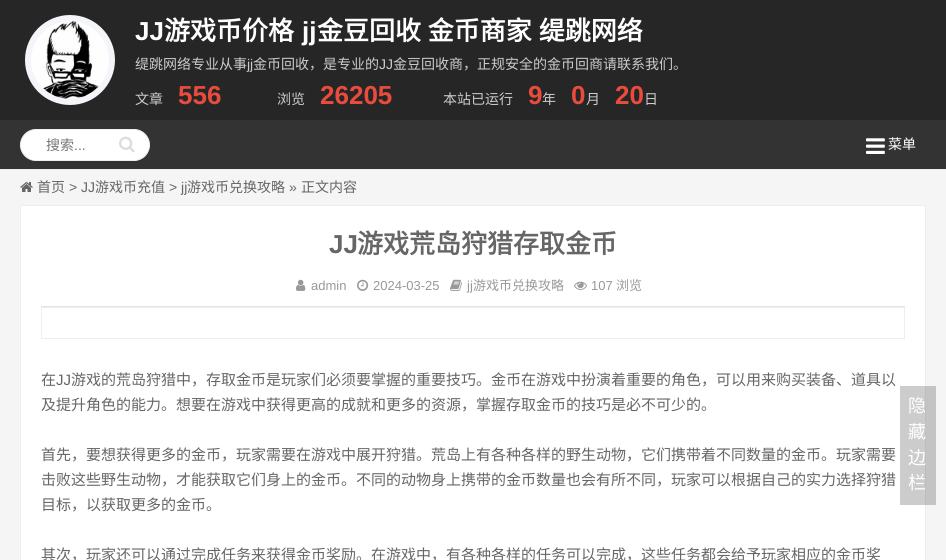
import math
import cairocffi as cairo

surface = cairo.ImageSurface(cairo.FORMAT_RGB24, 946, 560)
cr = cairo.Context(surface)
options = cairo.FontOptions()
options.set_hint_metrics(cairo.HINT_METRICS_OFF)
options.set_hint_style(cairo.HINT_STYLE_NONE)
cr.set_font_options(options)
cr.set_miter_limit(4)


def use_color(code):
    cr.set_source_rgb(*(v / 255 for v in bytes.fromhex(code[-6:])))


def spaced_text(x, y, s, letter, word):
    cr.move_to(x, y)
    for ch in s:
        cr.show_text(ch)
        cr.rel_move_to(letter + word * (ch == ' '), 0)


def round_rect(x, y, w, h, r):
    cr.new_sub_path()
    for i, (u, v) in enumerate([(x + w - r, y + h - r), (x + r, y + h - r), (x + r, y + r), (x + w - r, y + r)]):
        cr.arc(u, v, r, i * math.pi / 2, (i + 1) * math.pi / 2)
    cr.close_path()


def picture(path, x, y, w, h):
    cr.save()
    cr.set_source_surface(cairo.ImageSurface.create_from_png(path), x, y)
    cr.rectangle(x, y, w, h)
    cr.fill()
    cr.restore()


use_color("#f5f5f5")
cr.paint()
use_color("#262627")
cr.rectangle(0, 0, 946, 120)
cr.fill()
use_color("#f3f5f9")
cr.arc(70, 60, 42, 0, 2 * math.pi)
cr.fill_preserve()
cr.set_line_width(6)
cr.stroke()
picture("img1.png", 31, 21, 78, 78)
cr.select_font_face("Liberation Sans", cairo.FONT_SLANT_NORMAL, cairo.FONT_WEIGHT_BOLD)
cr.set_font_size(26)
use_color("#ffffff")
cr.move_to(135, 40)
cr.show_text("JJ")
cr.select_font_face("Noto Sans CJK SC", cairo.FONT_SLANT_NORMAL, cairo.FONT_WEIGHT_BOLD)
cr.move_to(164, 40)
cr.show_text("游戏币价格")
cr.select_font_face("Liberation Sans", cairo.FONT_SLANT_NORMAL, cairo.FONT_WEIGHT_BOLD)
cr.move_to(302, 40)
cr.show_text("jj")
cr.select_font_face("Noto Sans CJK SC", cairo.FONT_SLANT_NORMAL, cairo.FONT_WEIGHT_BOLD)
spaced_text(317, 40, "金豆回收 金币商家 缇跳网络", 0, 1)
cr.select_font_face("Noto Sans CJK SC")
cr.set_font_size(14)
use_color("#cccccc")
cr.move_to(135, 69)
cr.show_text("缇跳网络专业从事")
cr.select_font_face("Liberation Sans")
cr.move_to(247, 69)
cr.show_text("jj")
cr.select_font_face("Noto Sans CJK SC")
cr.move_to(253, 69)
cr.show_text("金币回收，是专业的")
cr.select_font_face("Liberation Sans")
cr.move_to(379, 69)
cr.show_text("JJ")
cr.select_font_face("Noto Sans CJK SC")
cr.move_to(393, 69)
cr.show_text("金豆回收商，正规安全的金币回商请联系我们。")
cr.move_to(135, 104)
cr.show_text("文章")
cr.select_font_face("Liberation Sans", cairo.FONT_SLANT_NORMAL, cairo.FONT_WEIGHT_BOLD)
cr.set_font_size(26)
use_color("#e94c3d")
cr.move_to(178, 104)
cr.show_text("556")
cr.select_font_face("Noto Sans CJK SC")
cr.set_font_size(14)
use_color("#cccccc")
cr.move_to(277, 104)
cr.show_text("浏览")
cr.select_font_face("Liberation Sans", cairo.FONT_SLANT_NORMAL, cairo.FONT_WEIGHT_BOLD)
cr.set_font_size(26)
use_color("#e94c3d")
cr.move_to(320, 104)
cr.show_text("26205")
cr.select_font_face("Noto Sans CJK SC")
cr.set_font_size(14)
use_color("#cccccc")
cr.move_to(443, 104)
cr.show_text("本站已运行")
cr.select_font_face("Liberation Sans", cairo.FONT_SLANT_NORMAL, cairo.FONT_WEIGHT_BOLD)
cr.set_font_size(26)
use_color("#e94c3d")
cr.move_to(528, 104)
cr.show_text("9")
cr.select_font_face("Noto Sans CJK SC")
cr.set_font_size(14)
use_color("#cccccc")
cr.move_to(542, 104)
cr.show_text("年")
cr.select_font_face("Liberation Sans", cairo.FONT_SLANT_NORMAL, cairo.FONT_WEIGHT_BOLD)
cr.set_font_size(26)
use_color("#e94c3d")
cr.move_to(571, 104)
cr.show_text("0")
cr.select_font_face("Noto Sans CJK SC")
cr.set_font_size(14)
use_color("#cccccc")
cr.move_to(586, 104)
cr.show_text("月")
cr.select_font_face("Liberation Sans", cairo.FONT_SLANT_NORMAL, cairo.FONT_WEIGHT_BOLD)
cr.set_font_size(26)
use_color("#e94c3d")
cr.move_to(615, 104)
cr.show_text("20")
cr.select_font_face("Noto Sans CJK SC")
cr.set_font_size(14)
use_color("#cccccc")
cr.move_to(644, 104)
cr.show_text("日")
use_color("#333333")
cr.rectangle(0, 120, 946, 49)
cr.fill()
use_color("#eeeeee")
cr.rectangle(0, 169, 946, 1)
cr.fill()
use_color("#ffffff")
round_rect(20.5, 129.5, 129, 31, 15.5)
cr.fill_preserve()
use_color("#efefef")
cr.set_line_width(1)
cr.stroke()
use_color("#757575")
cr.move_to(46, 150)
cr.show_text("搜索")
cr.select_font_face("Liberation Sans")
cr.move_to(74, 150)
cr.show_text("...")
picture("img2.png", 119, 136, 16, 17)
picture("img3.png", 866, 138, 19, 16)
cr.select_font_face("Noto Sans CJK SC")
use_color("#ffffff")
cr.move_to(888, 149)
cr.show_text("菜单")
picture("img4.png", 20, 182, 13, 10)
use_color("#666666")
cr.move_to(37, 192)
cr.show_text("首页")
cr.select_font_face("Liberation Sans")
cr.move_to(69, 192)
cr.show_text("> JJ")
cr.select_font_face("Noto Sans CJK SC")
cr.move_to(95, 192)
cr.show_text("游戏币充值")
cr.select_font_face("Liberation Sans")
cr.move_to(169, 192)
cr.show_text("> jj")
cr.select_font_face("Noto Sans CJK SC")
cr.move_to(187, 192)
cr.show_text("游戏币兑换攻略")
cr.select_font_face("Liberation Sans")
cr.move_to(289, 192)
cr.show_text("»")
cr.select_font_face("Noto Sans CJK SC")
cr.move_to(301, 192)
cr.show_text("正文内容")
use_color("#ffffff")
cr.rectangle(20.5, 205.5, 905, 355)
cr.fill_preserve()
use_color("#eeeeee")
cr.stroke()
use_color("#e3e3e3")
cr.rectangle(41, 306, 864, 1)
cr.fill()
cr.select_font_face("Liberation Sans", cairo.FONT_SLANT_NORMAL, cairo.FONT_WEIGHT_BOLD)
cr.set_font_size(26)
use_color("#666666")
cr.move_to(329, 253)
cr.show_text("JJ")
cr.select_font_face("Noto Sans CJK SC", cairo.FONT_SLANT_NORMAL, cairo.FONT_WEIGHT_BOLD)
cr.move_to(357, 253)
cr.show_text("游戏荒岛狩猎存取金币")
picture("img5.png", 296, 279, 10, 12)
cr.select_font_face("Liberation Sans")
cr.set_font_size(13)
use_color("#999999")
cr.move_to(311, 290)
cr.show_text("admin")
picture("img6.png", 357, 279, 12, 12)
cr.move_to(373, 290)
cr.show_text("2024-03-25")
picture("img7.png", 450, 279, 12, 12)
cr.move_to(467, 290)
cr.show_text("jj")
cr.select_font_face("Noto Sans CJK SC")
cr.move_to(473, 290)
cr.show_text("游戏币兑换攻略")
picture("img8.png", 574, 281, 13, 9)
cr.select_font_face("Liberation Sans")
cr.move_to(591, 290)
cr.show_text("107")
cr.select_font_face("Noto Sans CJK SC")
cr.move_to(616, 290)
cr.show_text("浏览")
cr.rectangle(41.5, 307.5, 863, 31)
use_color("#eeeeee")
cr.stroke()
cr.set_font_size(15)
use_color("#666666")
cr.move_to(41, 385)
cr.show_text("在")
cr.select_font_face("Liberation Sans")
cr.move_to(56, 385)
cr.show_text("JJ")
cr.select_font_face("Noto Sans CJK SC")
cr.move_to(71, 385)
cr.show_text("游戏的荒岛狩猎中，存取金币是玩家们必须要掌握的重要技巧。金币在游戏中扮演着重要的角色，可以用来购买装备、道具以")
cr.move_to(41, 410)
cr.show_text("及提升角色的能力。想要在游戏中获得更高的成就和更多的资源，掌握存取金币的技巧是必不可少的。")
cr.move_to(41, 460)
cr.show_text("首先，要想获得更多的金币，玩家需要在游戏中展开狩猎。荒岛上有各种各样的野生动物，它们携带着不同数量的金币。玩家需要")
cr.move_to(41, 485)
cr.show_text("击败这些野生动物，才能获取它们身上的金币。不同的动物身上携带的金币数量也会有所不同，玩家可以根据自己的实力选择狩猎")
cr.move_to(41, 510)
cr.show_text("目标，以获取更多的金币。")
cr.move_to(41, 560)
cr.show_text("其次，玩家还可以通过完成任务来获得金币奖励。在游戏中，有各种各样的任务可以完成，这些任务都会给予玩家相应的金币奖")
cr.set_source_rgba(0, 0, 0, 0.2)
cr.rectangle(900, 386, 36, 119)
cr.fill()
cr.set_font_size(18)
use_color("#ffffff")
cr.move_to(908, 412)
cr.show_text("隐")
cr.move_to(908, 438)
cr.show_text("藏")
cr.move_to(908, 464)
cr.show_text("边")
cr.move_to(908, 489)
cr.show_text("栏")
surface.write_to_png("result.png")
